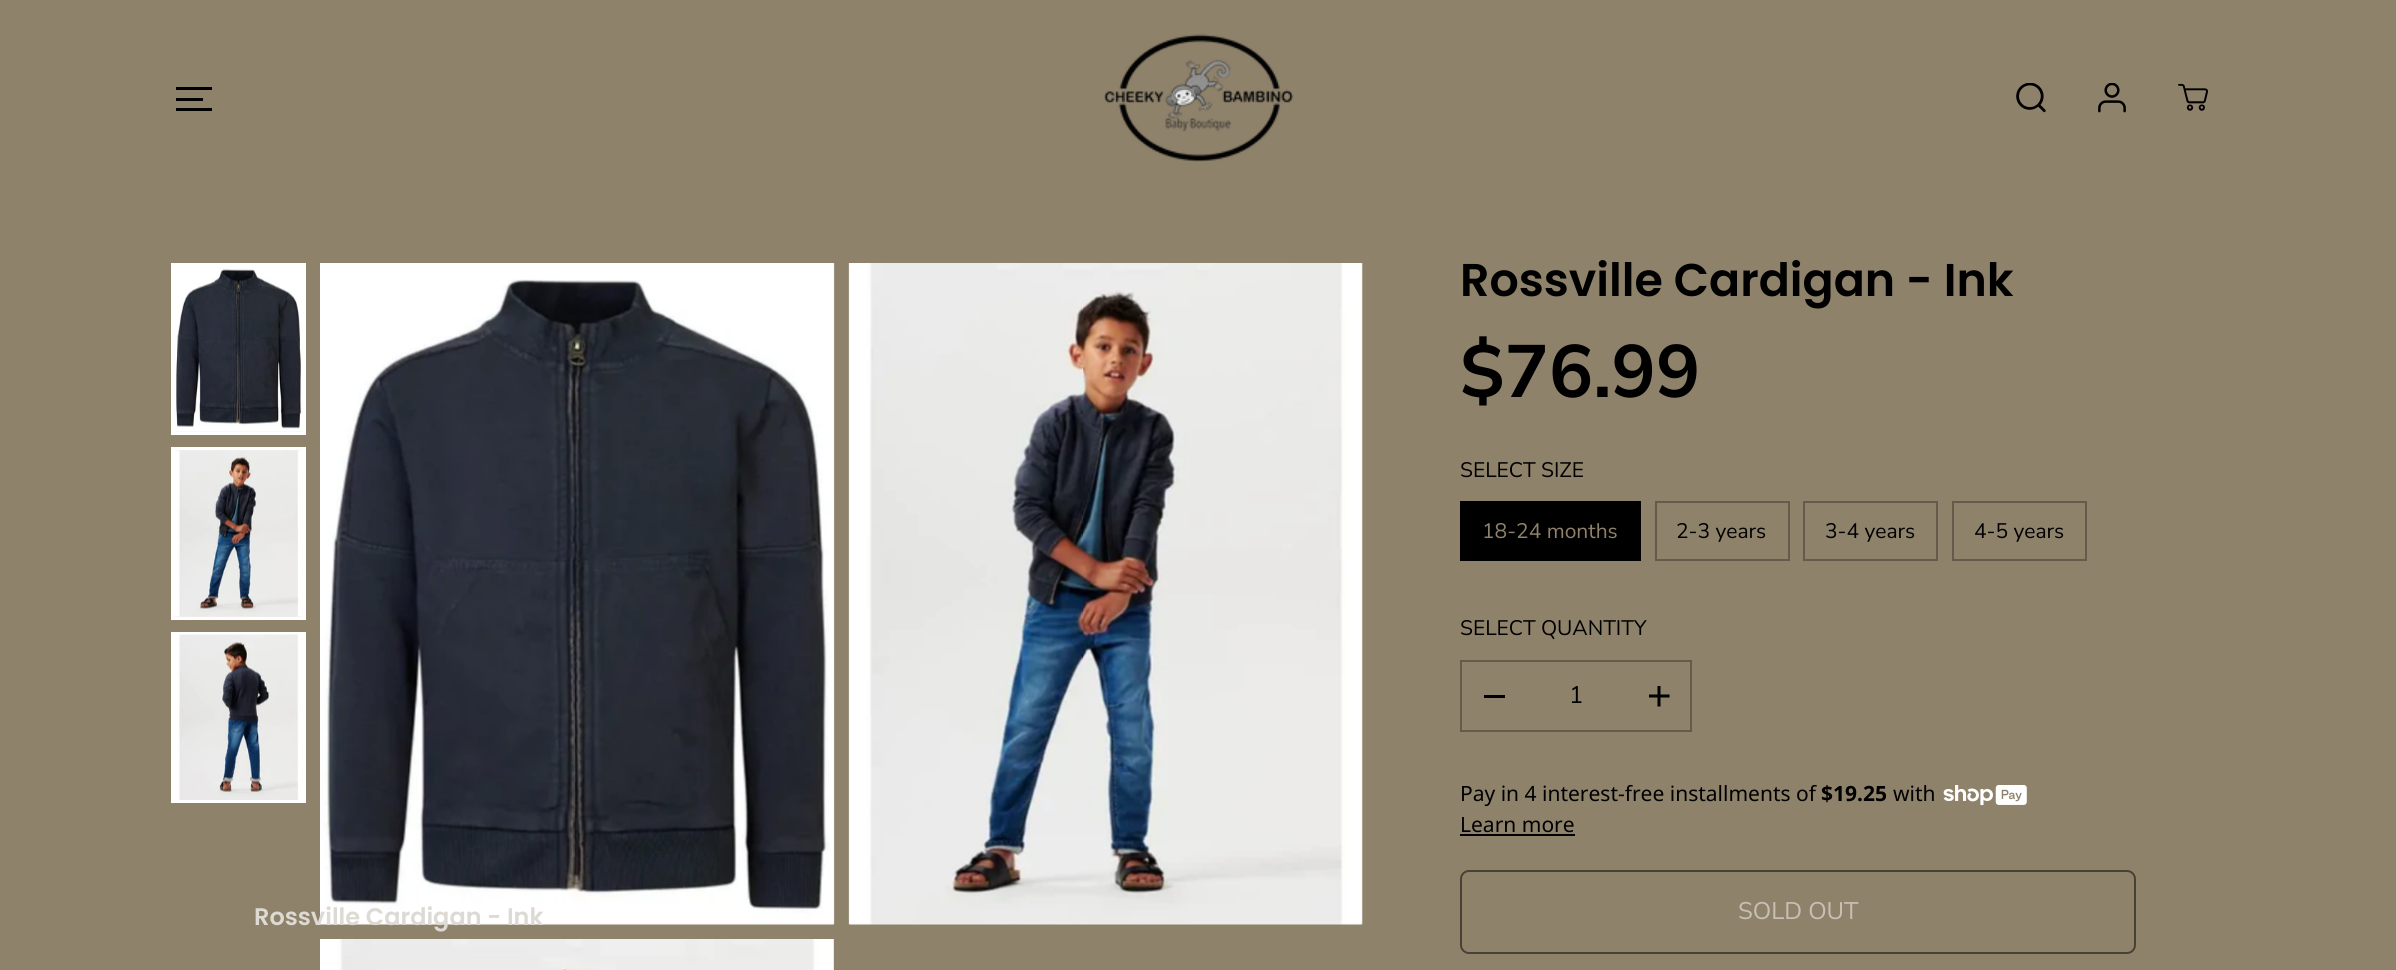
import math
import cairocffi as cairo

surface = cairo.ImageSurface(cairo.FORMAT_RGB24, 2396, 970)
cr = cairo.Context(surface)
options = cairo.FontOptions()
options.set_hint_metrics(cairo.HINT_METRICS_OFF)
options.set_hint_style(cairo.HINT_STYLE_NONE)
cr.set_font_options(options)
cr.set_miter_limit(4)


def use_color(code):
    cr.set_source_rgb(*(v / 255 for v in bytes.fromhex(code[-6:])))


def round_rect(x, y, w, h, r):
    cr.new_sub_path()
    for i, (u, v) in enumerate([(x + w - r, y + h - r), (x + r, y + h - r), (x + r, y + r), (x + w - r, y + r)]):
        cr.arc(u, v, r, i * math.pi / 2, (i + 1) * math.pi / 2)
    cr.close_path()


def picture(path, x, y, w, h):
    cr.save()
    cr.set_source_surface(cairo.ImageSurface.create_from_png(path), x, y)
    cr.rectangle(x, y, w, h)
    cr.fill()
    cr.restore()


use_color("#8f826b")
cr.paint()
use_color("#000000")
cr.rectangle(176, 87, 36, 3)
cr.fill()
cr.rectangle(176, 98, 27, 3)
cr.fill()
cr.rectangle(176, 108, 36, 3)
cr.fill()
picture("img1.png", 1104, 34, 190, 128)
picture("img2.png", 2016, 83, 30, 30)
picture("img3.png", 2098, 83, 28, 30)
picture("img4.png", 2178, 83, 30, 28)
use_color("#f3efec")
cr.rectangle(320, 263, 514, 661)
cr.fill()
picture("img8.png", 320, 263, 515, 662)
cr.select_font_face("Poppins SemiBold")
cr.set_font_size(24)
use_color("#ddd9d3")
cr.move_to(254, 925)
cr.show_text("Rossville Cardigan - Ink")
cr.rectangle(172.5, 264.5, 132, 169)
use_color("#ffffff")
cr.set_line_width(3)
cr.stroke()
use_color("#f3efec")
cr.rectangle(174, 431, 129, 1)
cr.fill()
picture("img5.png", 174, 266, 129, 166)
cr.rectangle(172.5, 448.5, 132, 170)
use_color("#ffffff")
cr.stroke()
use_color("#f3efec")
cr.rectangle(174, 450, 129, 167)
cr.fill()
picture("img6.png", 174, 450, 129, 167)
cr.rectangle(172.5, 633.5, 132, 168)
use_color("#ffffff")
cr.stroke()
picture("img7.png", 174, 634, 129, 166)
use_color("#f3efec")
cr.rectangle(849, 263, 513, 661)
cr.fill()
picture("img9.png", 848, 263, 515, 662)
picture("img10.png", 320, 939, 514, 31)
cr.set_font_size(45.9)
use_color("#000000")
cr.move_to(1460, 296)
cr.show_text("Rossville Cardigan - Ink")
cr.select_font_face("Nunito Sans", cairo.FONT_SLANT_NORMAL, cairo.FONT_WEIGHT_BOLD)
cr.set_font_size(74)
cr.move_to(1460, 397)
cr.show_text("$76.99")
cr.select_font_face("Nunito Sans")
cr.set_font_size(21)
cr.move_to(1460, 477)
cr.show_text("SELECT SIZE")
cr.rectangle(1460, 501, 181, 60)
cr.fill()
use_color("#8f826b")
cr.move_to(1482, 538)
cr.show_text("18-24 months")
cr.rectangle(1656, 502, 133, 58)
use_color("#645b4b")
cr.set_line_width(2)
cr.stroke()
use_color("#000000")
cr.move_to(1676, 538)
cr.show_text("2-3 years")
cr.rectangle(1804, 502, 133, 58)
use_color("#645b4b")
cr.stroke()
use_color("#000000")
cr.move_to(1825, 538)
cr.show_text("3-4 years")
cr.rectangle(1953, 502, 133, 58)
use_color("#645b4b")
cr.stroke()
use_color("#000000")
cr.move_to(1974, 538)
cr.show_text("4-5 years")
cr.move_to(1460, 635)
cr.show_text("SELECT QUANTITY")
cr.rectangle(1461, 661, 230, 70)
use_color("#645b4b")
cr.stroke()
use_color("#000000")
cr.rectangle(1484, 695, 21, 3)
cr.fill()
cr.set_font_size(24)
cr.move_to(1569, 703)
cr.show_text("1")
picture("img11.png", 1649, 686, 21, 21)
cr.select_font_face("Noto Sans")
cr.set_font_size(21)
cr.move_to(1460, 801)
cr.show_text("Pay in 4 interest-free installments of")
cr.select_font_face("Noto Sans", cairo.FONT_SLANT_NORMAL, cairo.FONT_WEIGHT_BOLD)
cr.move_to(1821, 801)
cr.show_text("$19.25")
cr.select_font_face("Noto Sans")
cr.move_to(1893, 801)
cr.show_text("with")
picture("img12.png", 1943, 785, 84, 21)
cr.move_to(1460, 832)
cr.show_text("Learn more")
cr.rectangle(1460, 834, 115, 2)
cr.fill()
round_rect(1461, 871, 674, 82, 8)
use_color("#484136")
cr.stroke()
cr.select_font_face("Nunito Sans")
cr.set_font_size(24)
use_color("#c7c1b5")
cr.move_to(1738, 919)
cr.show_text("SOLD OUT")
surface.write_to_png("result.png")
